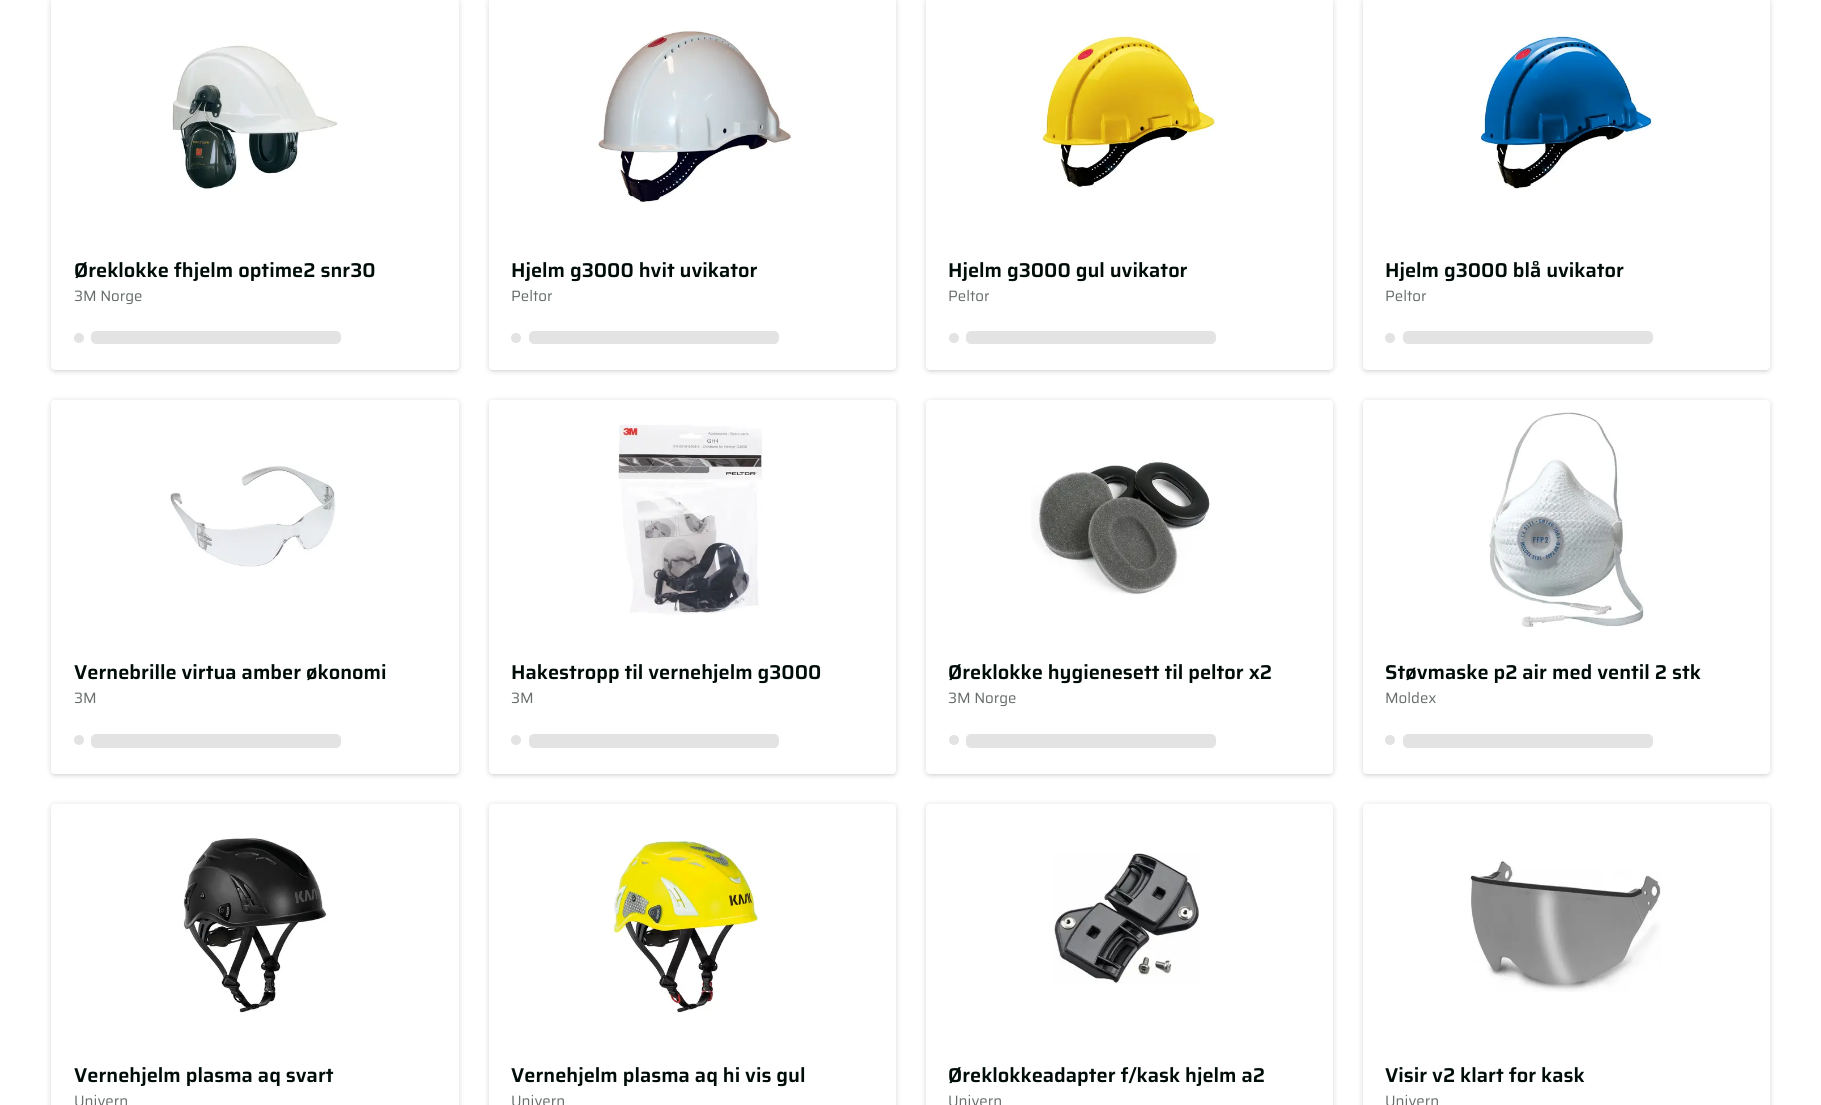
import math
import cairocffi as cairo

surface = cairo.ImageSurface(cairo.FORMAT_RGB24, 1821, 1105)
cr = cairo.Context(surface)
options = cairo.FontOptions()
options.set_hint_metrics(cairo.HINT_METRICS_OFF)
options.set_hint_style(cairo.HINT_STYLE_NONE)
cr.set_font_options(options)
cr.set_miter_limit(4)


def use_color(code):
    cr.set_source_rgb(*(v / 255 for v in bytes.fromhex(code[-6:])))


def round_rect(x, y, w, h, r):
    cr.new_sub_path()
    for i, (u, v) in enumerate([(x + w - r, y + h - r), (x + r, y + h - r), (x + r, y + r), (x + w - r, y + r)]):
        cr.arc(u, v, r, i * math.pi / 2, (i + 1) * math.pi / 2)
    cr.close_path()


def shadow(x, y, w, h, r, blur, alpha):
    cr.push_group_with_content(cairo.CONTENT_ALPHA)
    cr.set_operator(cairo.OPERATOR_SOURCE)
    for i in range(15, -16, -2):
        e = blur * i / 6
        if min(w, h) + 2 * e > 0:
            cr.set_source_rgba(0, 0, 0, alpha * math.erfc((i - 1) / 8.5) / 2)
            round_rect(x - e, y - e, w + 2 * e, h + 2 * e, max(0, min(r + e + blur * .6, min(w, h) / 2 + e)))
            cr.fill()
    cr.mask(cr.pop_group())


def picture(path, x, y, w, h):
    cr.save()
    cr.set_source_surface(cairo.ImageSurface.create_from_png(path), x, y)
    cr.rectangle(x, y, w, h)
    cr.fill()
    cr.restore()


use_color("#ffffff")
cr.paint()
use_color("#000000")
shadow(51, -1, 408, 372, 4, 3, 0.15)
shadow(55, 5, 400, 365, 0, 2, 0.1)
use_color("#ffffff")
round_rect(51, -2, 408, 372, 4)
cr.fill()
picture("img1.png", 172, 44, 166, 146)
cr.select_font_face("Saira SemiBold")
cr.set_font_size(20)
use_color("#000c09")
cr.move_to(74, 277)
cr.show_text("Øreklokke fhjelm optime2 snr30")
cr.select_font_face("Saira")
cr.set_font_size(15)
use_color("#666d6b")
cr.move_to(74, 301)
cr.show_text("3M Norge")
use_color("#e3e3e3")
cr.new_path()
cr.arc(79, 338, 5, 0, 2 * math.pi)
cr.fill()
round_rect(91, 331, 250, 13, 5)
cr.fill()
use_color("#000000")
shadow(489, -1, 407, 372, 4, 3, 0.15)
shadow(493, 5, 400, 365, 0, 2, 0.1)
use_color("#ffffff")
round_rect(489, -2, 407, 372, 4)
cr.fill()
picture("img2.png", 597, 30, 195, 174)
cr.select_font_face("Saira SemiBold")
cr.set_font_size(20)
use_color("#000c09")
cr.move_to(511, 277)
cr.show_text("Hjelm g3000 hvit uvikator")
cr.select_font_face("Saira")
cr.set_font_size(15)
use_color("#666d6b")
cr.move_to(511, 301)
cr.show_text("Peltor")
use_color("#e3e3e3")
cr.new_path()
cr.arc(516, 338, 5, 0, 2 * math.pi)
cr.fill()
round_rect(529, 331, 250, 13, 5)
cr.fill()
use_color("#000000")
shadow(926, -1, 407, 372, 4, 3, 0.15)
shadow(930, 5, 399, 365, 0, 2, 0.1)
use_color("#ffffff")
round_rect(926, -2, 407, 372, 4)
cr.fill()
picture("img3.png", 1042, 35, 173, 152)
cr.select_font_face("Saira SemiBold")
cr.set_font_size(20)
use_color("#000c09")
cr.move_to(948, 277)
cr.show_text("Hjelm g3000 gul uvikator")
cr.select_font_face("Saira")
cr.set_font_size(15)
use_color("#666d6b")
cr.move_to(948, 301)
cr.show_text("Peltor")
use_color("#e3e3e3")
cr.new_path()
cr.arc(954, 338, 5, 0, 2 * math.pi)
cr.fill()
round_rect(966, 331, 250, 13, 5)
cr.fill()
use_color("#000000")
shadow(1363, -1, 407, 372, 4, 3, 0.15)
shadow(1366, 5, 400, 365, 0, 2, 0.1)
use_color("#ffffff")
round_rect(1363, -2, 407, 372, 4)
cr.fill()
picture("img4.png", 1480, 35, 173, 154)
cr.select_font_face("Saira SemiBold")
cr.set_font_size(20)
use_color("#000c09")
cr.move_to(1385, 277)
cr.show_text("Hjelm g3000 blå uvikator")
cr.select_font_face("Saira")
cr.set_font_size(15)
use_color("#666d6b")
cr.move_to(1385, 301)
cr.show_text("Peltor")
use_color("#e3e3e3")
cr.new_path()
cr.arc(1390, 338, 5, 0, 2 * math.pi)
cr.fill()
round_rect(1403, 331, 250, 13, 5)
cr.fill()
use_color("#000000")
shadow(51, 401, 408, 374, 4, 3, 0.15)
shadow(55, 408, 400, 366, 0, 2, 0.1)
use_color("#ffffff")
round_rect(51, 400, 408, 374, 4)
cr.fill()
picture("img5.png", 169, 465, 167, 102)
cr.select_font_face("Saira SemiBold")
cr.set_font_size(20)
use_color("#000c09")
cr.move_to(74, 679)
cr.show_text("Vernebrille virtua amber økonomi")
cr.select_font_face("Saira")
cr.set_font_size(15)
use_color("#666d6b")
cr.move_to(74, 703)
cr.show_text("3M")
use_color("#e3e3e3")
cr.new_path()
cr.arc(79, 740, 5, 0, 2 * math.pi)
cr.fill()
round_rect(91, 734, 250, 14, 5)
cr.fill()
use_color("#000000")
shadow(489, 401, 407, 374, 4, 3, 0.15)
shadow(493, 408, 400, 366, 0, 2, 0.1)
use_color("#ffffff")
round_rect(489, 400, 407, 374, 4)
cr.fill()
picture("img6.png", 618, 424, 145, 191)
cr.select_font_face("Saira SemiBold")
cr.set_font_size(20)
use_color("#000c09")
cr.move_to(511, 679)
cr.show_text("Hakestropp til vernehjelm g3000")
cr.select_font_face("Saira")
cr.set_font_size(15)
use_color("#666d6b")
cr.move_to(511, 703)
cr.show_text("3M")
use_color("#e3e3e3")
cr.new_path()
cr.arc(516, 740, 5, 0, 2 * math.pi)
cr.fill()
round_rect(529, 734, 250, 14, 5)
cr.fill()
use_color("#000000")
shadow(926, 401, 407, 374, 4, 3, 0.15)
shadow(930, 408, 399, 366, 0, 2, 0.1)
use_color("#ffffff")
round_rect(926, 400, 407, 374, 4)
cr.fill()
picture("img7.png", 1031, 460, 179, 135)
cr.select_font_face("Saira SemiBold")
cr.set_font_size(20)
use_color("#000c09")
cr.move_to(948, 679)
cr.show_text("Øreklokke hygienesett til peltor x2")
cr.select_font_face("Saira")
cr.set_font_size(15)
use_color("#666d6b")
cr.move_to(948, 703)
cr.show_text("3M Norge")
use_color("#e3e3e3")
cr.new_path()
cr.arc(954, 740, 5, 0, 2 * math.pi)
cr.fill()
round_rect(966, 734, 250, 14, 5)
cr.fill()
use_color("#000000")
shadow(1363, 401, 407, 374, 4, 3, 0.15)
shadow(1366, 408, 400, 366, 0, 2, 0.1)
use_color("#ffffff")
round_rect(1363, 400, 407, 374, 4)
cr.fill()
picture("img8.png", 1489, 412, 157, 215)
cr.select_font_face("Saira SemiBold")
cr.set_font_size(20)
use_color("#000c09")
cr.move_to(1385, 679)
cr.show_text("Støvmaske p2 air med ventil 2 stk")
cr.select_font_face("Saira")
cr.set_font_size(15)
use_color("#666d6b")
cr.move_to(1385, 703)
cr.show_text("Moldex")
use_color("#e3e3e3")
cr.new_path()
cr.arc(1390, 740, 5, 0, 2 * math.pi)
cr.fill()
round_rect(1403, 734, 250, 14, 5)
cr.fill()
use_color("#000000")
shadow(51, 805, 408, 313, 4, 3, 0.15)
use_color("#ffffff")
round_rect(51, 804, 408, 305, 4)
cr.fill()
picture("img9.png", 183, 837, 145, 176)
cr.select_font_face("Saira SemiBold")
cr.set_font_size(20)
use_color("#000c09")
cr.move_to(74, 1082)
cr.show_text("Vernehjelm plasma aq svart")
cr.select_font_face("Saira")
cr.set_font_size(15)
use_color("#666d6b")
cr.move_to(74, 1106)
cr.show_text("Univern")
cr.save()
cr.set_fill_rule(cairo.FILL_RULE_EVEN_ODD)
cr.new_path()
cr.move_to(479, 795)
cr.line_to(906, 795)
cr.line_to(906, 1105)
cr.line_to(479, 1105)
cr.close_path()
cr.move_to(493, 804)
cr.line_to(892, 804)
cr.curve_to(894, 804, 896, 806, 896, 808)
cr.line_to(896, 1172)
cr.curve_to(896, 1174, 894, 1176, 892, 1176)
cr.line_to(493, 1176)
cr.curve_to(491, 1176, 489, 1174, 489, 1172)
cr.line_to(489, 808)
cr.curve_to(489, 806, 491, 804, 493, 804)
cr.close_path()
cr.clip()
use_color("#000000")
shadow(489, 805, 407, 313, 4, 3, 0.15)
cr.restore()
picture("img10.png", 611, 841, 150, 172)
cr.select_font_face("Saira SemiBold")
cr.set_font_size(20)
use_color("#000c09")
cr.move_to(511, 1082)
cr.show_text("Vernehjelm plasma aq hi vis gul")
cr.select_font_face("Saira")
cr.set_font_size(15)
use_color("#666d6b")
cr.move_to(511, 1106)
cr.show_text("Univern")
use_color("#000000")
shadow(926, 805, 407, 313, 4, 3, 0.15)
use_color("#ffffff")
round_rect(926, 804, 407, 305, 4)
cr.fill()
picture("img11.png", 1054, 853, 145, 131)
cr.select_font_face("Saira SemiBold")
cr.set_font_size(20)
use_color("#000c09")
cr.move_to(948, 1082)
cr.show_text("Øreklokkeadapter f/kask hjelm a2")
cr.select_font_face("Saira")
cr.set_font_size(15)
use_color("#666d6b")
cr.move_to(948, 1106)
cr.show_text("Univern")
cr.save()
cr.set_fill_rule(cairo.FILL_RULE_EVEN_ODD)
cr.new_path()
cr.move_to(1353, 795)
cr.line_to(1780, 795)
cr.line_to(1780, 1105)
cr.line_to(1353, 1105)
cr.close_path()
cr.move_to(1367, 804)
cr.line_to(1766, 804)
cr.curve_to(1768, 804, 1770, 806, 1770, 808)
cr.line_to(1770, 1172)
cr.curve_to(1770, 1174, 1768, 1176, 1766, 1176)
cr.line_to(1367, 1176)
cr.curve_to(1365, 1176, 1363, 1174, 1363, 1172)
cr.line_to(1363, 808)
cr.curve_to(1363, 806, 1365, 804, 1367, 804)
cr.close_path()
cr.clip()
use_color("#000000")
shadow(1363, 805, 407, 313, 4, 3, 0.15)
cr.restore()
picture("img12.png", 1468, 860, 193, 132)
cr.select_font_face("Saira SemiBold")
cr.set_font_size(20)
use_color("#000c09")
cr.move_to(1385, 1082)
cr.show_text("Visir v2 klart for kask")
cr.select_font_face("Saira")
cr.set_font_size(15)
use_color("#666d6b")
cr.move_to(1385, 1106)
cr.show_text("Univern")
surface.write_to_png("result.png")
